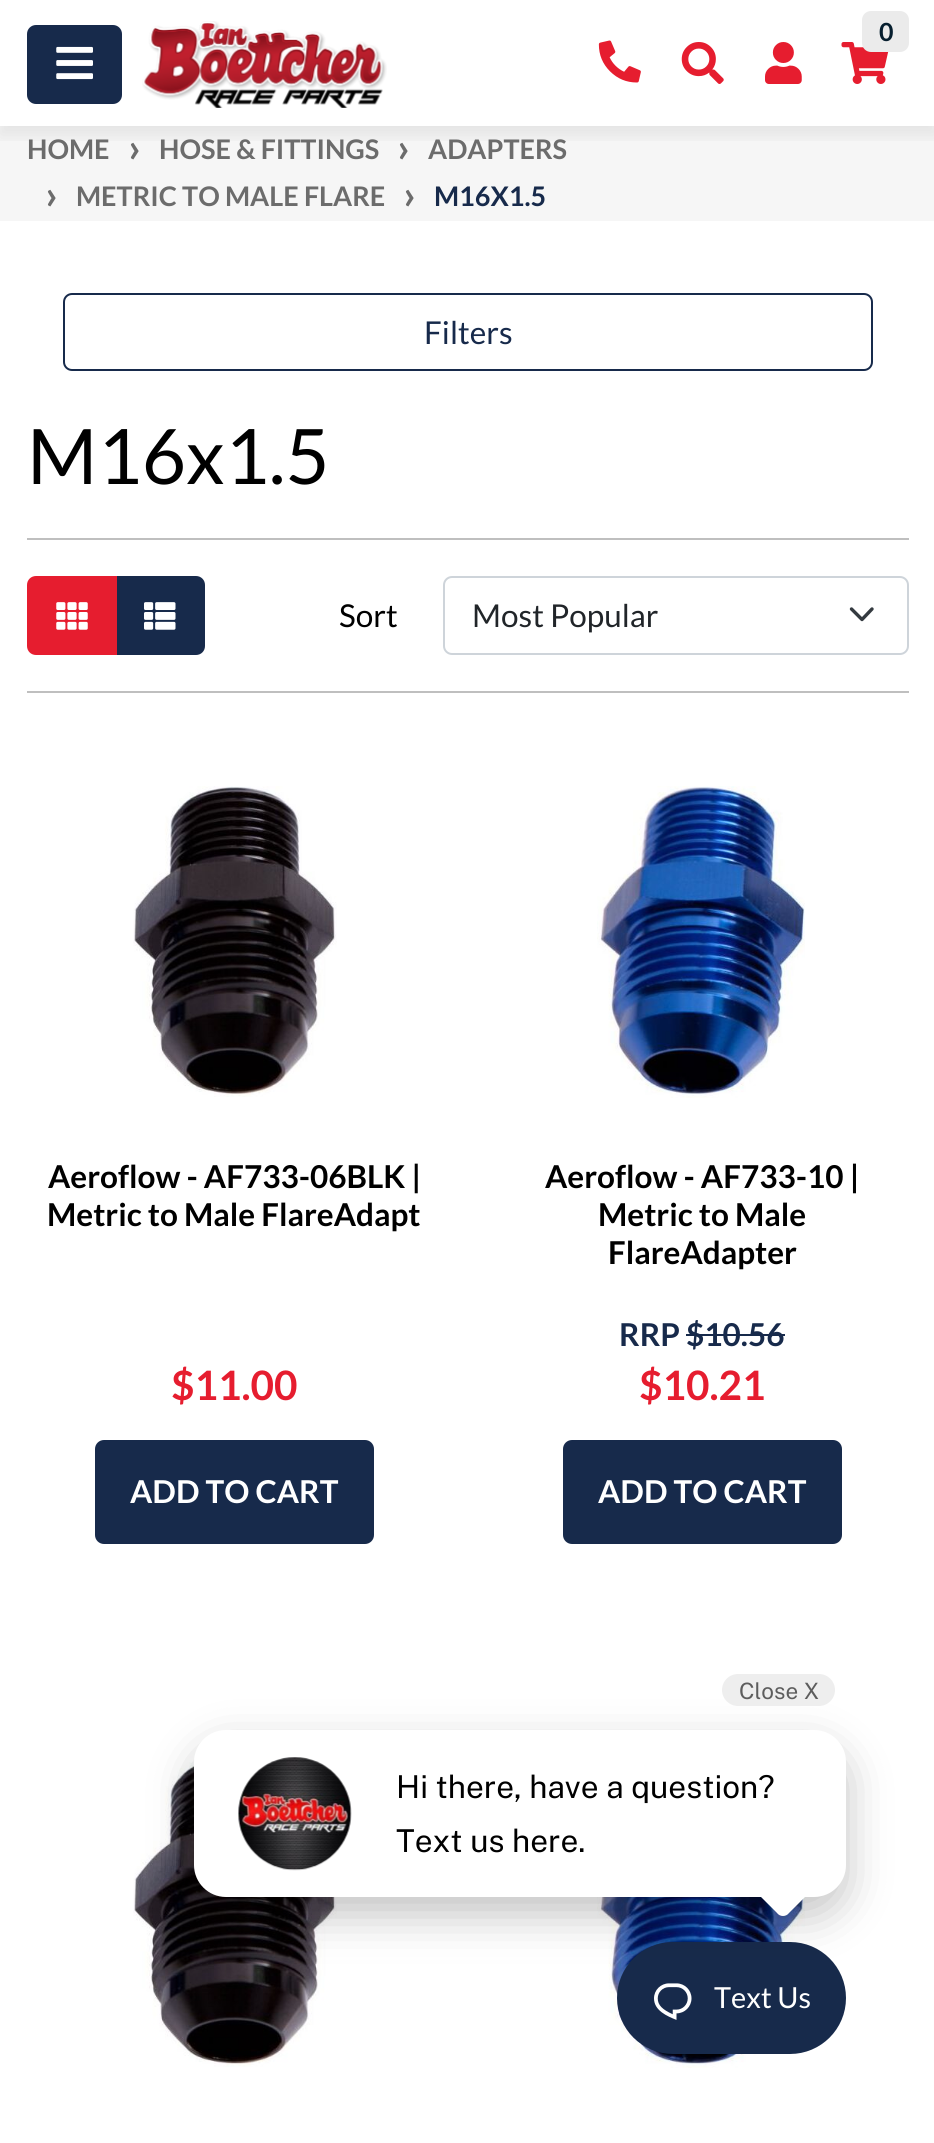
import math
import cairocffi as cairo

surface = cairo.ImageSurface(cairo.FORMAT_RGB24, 934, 2143)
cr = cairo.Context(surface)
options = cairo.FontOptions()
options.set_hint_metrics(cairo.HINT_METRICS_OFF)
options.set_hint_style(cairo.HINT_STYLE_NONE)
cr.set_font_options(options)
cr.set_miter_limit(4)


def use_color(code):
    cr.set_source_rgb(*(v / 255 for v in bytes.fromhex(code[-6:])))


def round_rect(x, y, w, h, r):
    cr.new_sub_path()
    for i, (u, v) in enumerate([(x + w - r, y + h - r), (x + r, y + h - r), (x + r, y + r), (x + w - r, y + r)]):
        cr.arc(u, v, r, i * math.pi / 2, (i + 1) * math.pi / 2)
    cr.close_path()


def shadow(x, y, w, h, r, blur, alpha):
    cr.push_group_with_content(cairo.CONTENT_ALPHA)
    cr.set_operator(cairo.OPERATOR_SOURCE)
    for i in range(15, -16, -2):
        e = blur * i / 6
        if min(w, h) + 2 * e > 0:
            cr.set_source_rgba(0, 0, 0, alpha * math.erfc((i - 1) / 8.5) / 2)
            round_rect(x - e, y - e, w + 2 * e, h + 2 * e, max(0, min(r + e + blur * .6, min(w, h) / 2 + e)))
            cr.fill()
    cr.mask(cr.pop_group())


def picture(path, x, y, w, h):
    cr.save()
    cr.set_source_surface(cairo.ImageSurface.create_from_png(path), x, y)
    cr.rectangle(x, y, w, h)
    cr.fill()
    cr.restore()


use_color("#ffffff")
cr.paint()
use_color("#f6f6f6")
cr.rectangle(0, 126, 934, 95)
cr.fill()
cr.save()
cr.rectangle(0, 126, 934, 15)
cr.clip()
use_color("#000000")
shadow(0, 9, 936, 126, 0, 9, 0.08)
cr.restore()
use_color("#172a4b")
round_rect(28, 26, 93, 77, 8)
cr.fill_preserve()
cr.stroke()
picture("img1.png", 56, 46, 37, 34)
picture("img2.png", 142, 21, 245, 87)
picture("img3.png", 841, 42, 48, 42)
use_color("#ebebeb")
round_rect(862, 11, 47, 41, 9)
cr.fill()
cr.select_font_face("Lato", cairo.FONT_SLANT_NORMAL, cairo.FONT_WEIGHT_BOLD)
cr.set_font_size(25)
use_color("#071f2f")
cr.move_to(879, 41)
cr.show_text("0")
picture("img4.png", 598, 40, 43, 43)
picture("img5.png", 681, 42, 43, 42)
picture("img6.png", 765, 42, 37, 42)
cr.set_font_size(27)
use_color("#6c6c6c")
cr.move_to(27, 159)
cr.show_text("HOME")
cr.set_font_size(40.5)
cr.move_to(128, 162)
cr.show_text("›")
cr.set_font_size(27)
cr.move_to(159, 159)
cr.show_text("HOSE & FITTINGS")
cr.set_font_size(40.5)
cr.move_to(397, 162)
cr.show_text("›")
cr.set_font_size(27)
cr.move_to(428, 159)
cr.show_text("ADAPTERS")
cr.set_font_size(40.5)
cr.move_to(45, 209)
cr.show_text("›")
cr.set_font_size(27)
cr.move_to(76, 206)
cr.show_text("METRIC TO MALE FLARE")
cr.set_font_size(40.5)
cr.move_to(403, 209)
cr.show_text("›")
cr.set_font_size(27)
use_color("#172a4b")
cr.move_to(434, 206)
cr.show_text("M16X1.5")
round_rect(64, 294, 808, 76, 8)
cr.stroke()
cr.select_font_face("Lato")
cr.set_font_size(31.5)
cr.move_to(424, 344)
cr.show_text("Filters")
cr.set_font_size(76.5)
use_color("#000000")
cr.move_to(27, 484)
cr.show_text("M16x1.5")
use_color("#bfbfbf")
cr.rectangle(27, 538, 882, 2)
cr.fill()
use_color("#172a4b")
cr.new_path()
cr.move_to(116, 577)
cr.line_to(196, 577)
cr.curve_to(200.5, 577, 204, 580.5, 204, 585)
cr.line_to(204, 646)
cr.curve_to(204, 650.5, 200.5, 654, 196, 654)
cr.line_to(116, 654)
cr.close_path()
cr.fill_preserve()
cr.stroke()
use_color("#e61d2f")
cr.new_path()
cr.move_to(36, 577)
cr.line_to(116, 577)
cr.line_to(116, 654)
cr.line_to(36, 654)
cr.curve_to(31.5, 654, 28, 650.5, 28, 646)
cr.line_to(28, 585)
cr.curve_to(28, 580.5, 31.5, 577, 36, 577)
cr.close_path()
cr.fill_preserve()
cr.stroke()
picture("img7.png", 56, 602, 32, 28)
picture("img8.png", 144, 602, 32, 28)
cr.set_font_size(31.5)
use_color("#000000")
cr.move_to(339, 627)
cr.show_text("Sort")
cr.new_path()
cr.move_to(851.5, 609)
cr.line_to(862, 619.5)
cr.line_to(872, 609)
use_color("#343a40")
cr.set_line_width(3.4)
cr.set_line_cap(cairo.LINE_CAP_ROUND)
cr.set_line_join(cairo.LINE_JOIN_ROUND)
cr.stroke()
round_rect(444, 577, 464, 77, 8)
use_color("#ced4da")
cr.set_line_width(2)
cr.set_line_cap(cairo.LINE_CAP_BUTT)
cr.set_line_join(cairo.LINE_JOIN_MITER)
cr.stroke()
use_color("#212529")
cr.move_to(472, 627)
cr.show_text("Most Popular")
use_color("#bfbfbf")
cr.rectangle(27, 691, 882, 2)
cr.fill()
picture("img9.png", 133, 786, 204, 311)
cr.select_font_face("Lato", cairo.FONT_SLANT_NORMAL, cairo.FONT_WEIGHT_BOLD)
use_color("#000000")
cr.move_to(48, 1188)
cr.show_text("Aeroflow - AF733-06BLK |")
cr.move_to(47, 1226)
cr.show_text("Metric to Male FlareAdapt")
cr.set_font_size(40.5)
use_color("#e61d2f")
cr.move_to(171, 1400)
cr.show_text("$11.00")
use_color("#172a4b")
round_rect(96, 1441, 277, 102, 8)
cr.fill_preserve()
cr.stroke()
cr.set_font_size(31.5)
use_color("#ffffff")
cr.move_to(130, 1503)
cr.show_text("ADD TO CART")
picture("img10.png", 597, 786, 208, 312)
use_color("#000000")
cr.move_to(545, 1188)
cr.show_text("Aeroflow - AF733-10 |")
cr.move_to(598, 1226)
cr.show_text("Metric to Male")
cr.move_to(608, 1264)
cr.show_text("FlareAdapter")
use_color("#172a4b")
cr.move_to(619, 1346)
cr.show_text("RRP $10.56")
cr.rectangle(686, 1334, 99, 2)
cr.fill()
cr.set_font_size(40.5)
use_color("#e61d2f")
cr.move_to(639, 1400)
cr.show_text("$10.21")
use_color("#172a4b")
round_rect(564, 1441, 277, 102, 8)
cr.fill_preserve()
cr.stroke()
cr.set_font_size(31.5)
use_color("#ffffff")
cr.move_to(598, 1503)
cr.show_text("ADD TO CART")
picture("img11.png", 133, 1756, 204, 311)
picture("img12.png", 597, 1897, 208, 171)
use_color("#172a4b")
round_rect(617, 1942, 229, 112, 56)
cr.fill()
picture("img14.png", 654, 1983, 38, 37)
use_color("#000000")
shadow(194, 1748, 652, 167, 32, 22.5, 0.24)
use_color("#ffffff")
round_rect(194, 1730, 652, 167, 32)
cr.fill()
use_color("#eeeeee")
round_rect(722, 1674, 113, 32, 16)
cr.fill()
cr.select_font_face("Public Sans Thin")
cr.set_font_size(22.5)
use_color("#5d5d5d")
cr.move_to(739, 1699)
cr.show_text("Close X")
picture("img13.png", 238, 1757, 114, 114)
cr.set_font_size(31.5)
use_color("#000000")
cr.move_to(396, 1798)
cr.show_text("Hi there, have a question?")
cr.move_to(396, 1852)
cr.show_text("Text us here.")
use_color("#ffffff")
cr.new_path()
cr.move_to(789, 1862)
cr.line_to(808, 1881)
cr.curve_to(812, 1885, 812, 1891, 808, 1894)
cr.line_to(789, 1913)
cr.curve_to(786, 1917, 780, 1917, 777, 1913)
cr.line_to(758, 1894)
cr.curve_to(754, 1891, 754, 1885, 758, 1881)
cr.line_to(777, 1862)
cr.curve_to(780, 1859, 786, 1859, 789, 1862)
cr.close_path()
cr.fill()
cr.select_font_face("Lato")
cr.set_font_size(29)
cr.move_to(714, 2008)
cr.show_text("Text Us")
surface.write_to_png("result.png")
